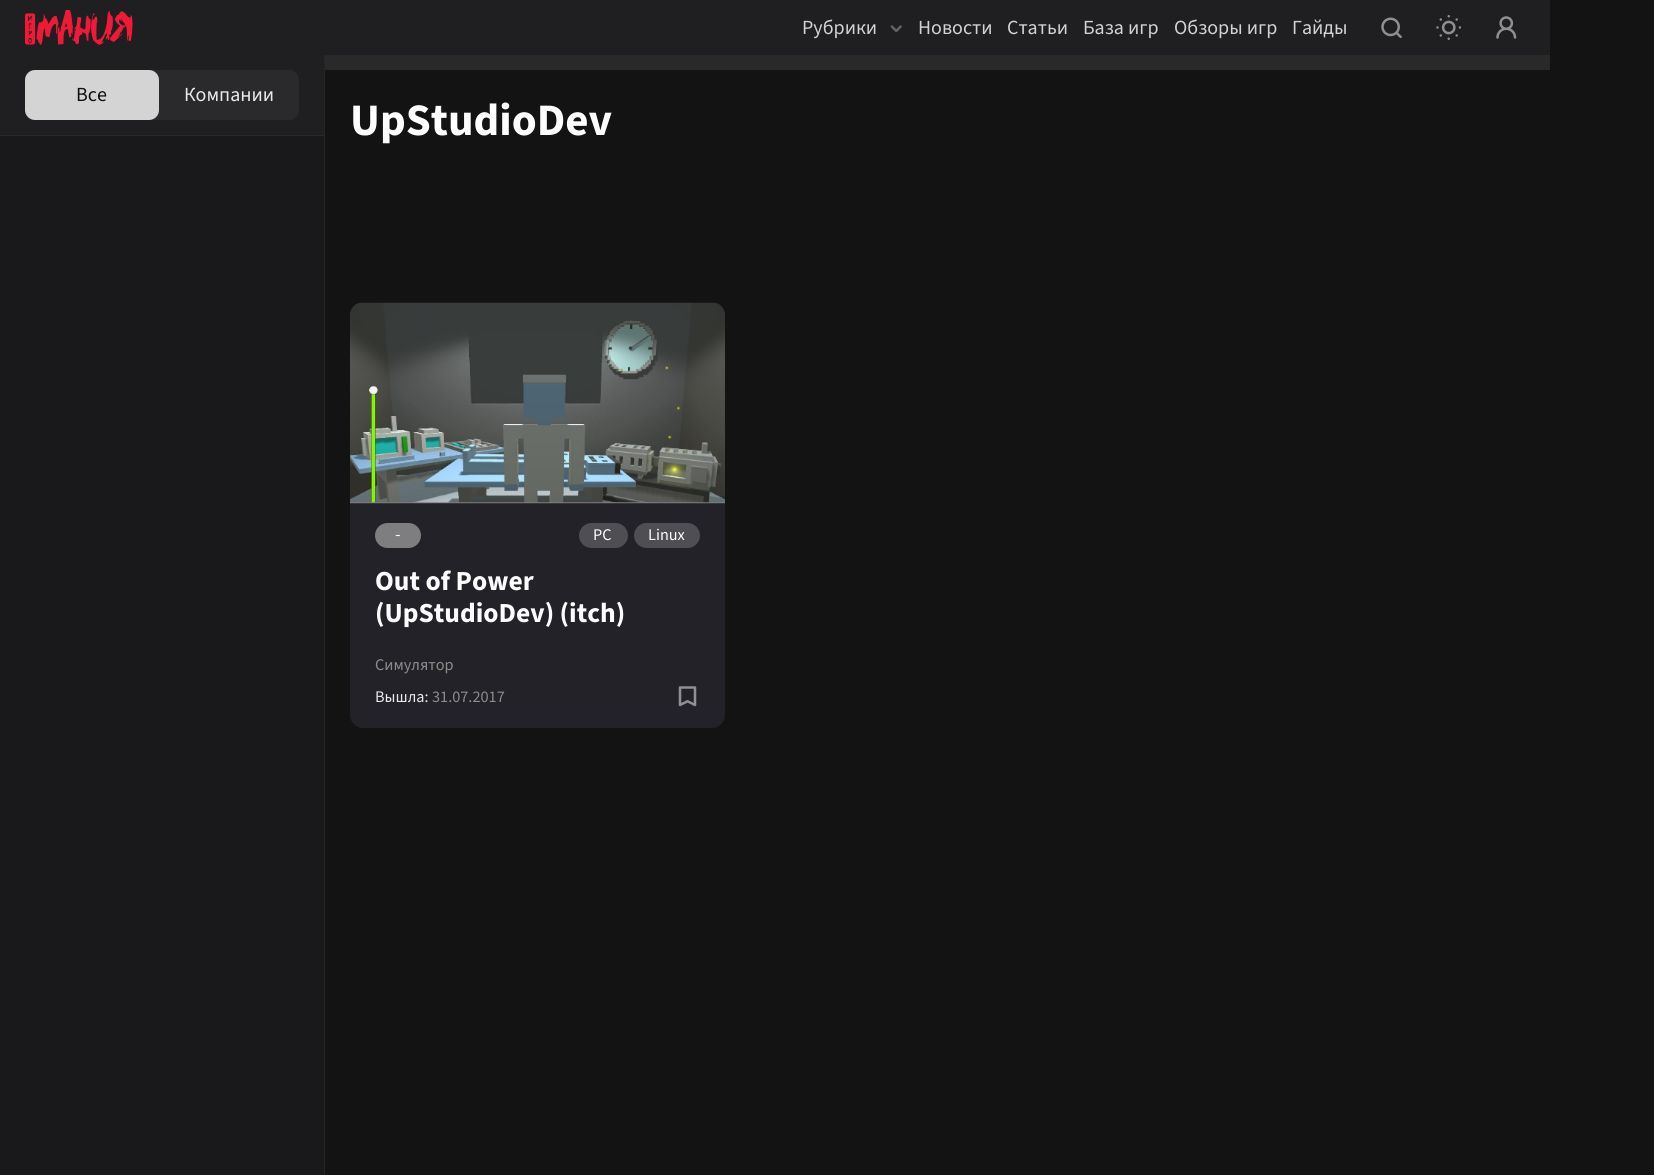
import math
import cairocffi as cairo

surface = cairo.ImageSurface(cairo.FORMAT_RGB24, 1654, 1175)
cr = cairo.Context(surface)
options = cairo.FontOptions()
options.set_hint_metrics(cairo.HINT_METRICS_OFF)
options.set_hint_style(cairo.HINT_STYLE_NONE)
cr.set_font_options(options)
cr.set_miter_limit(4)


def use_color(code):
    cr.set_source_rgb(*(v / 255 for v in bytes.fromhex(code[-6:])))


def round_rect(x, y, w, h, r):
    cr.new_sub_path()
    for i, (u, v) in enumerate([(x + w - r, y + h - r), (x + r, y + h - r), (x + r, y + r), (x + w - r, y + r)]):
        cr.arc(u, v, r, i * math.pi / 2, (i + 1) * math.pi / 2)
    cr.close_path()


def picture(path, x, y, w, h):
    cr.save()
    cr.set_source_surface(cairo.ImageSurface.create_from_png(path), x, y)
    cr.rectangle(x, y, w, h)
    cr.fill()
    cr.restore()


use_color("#131314")
cr.paint()
use_color("#1f1f21")
cr.rectangle(0, 0, 1550, 55)
cr.fill()
picture("img1.png", 25, 10, 108, 35)
cr.select_font_face("Source Sans 3")
cr.set_font_size(20)
use_color("#d2d2d3")
cr.move_to(802, 34)
cr.show_text("Рубрики")
picture("img2.png", 890, 25, 12, 8)
cr.move_to(918, 34)
cr.show_text("Новости")
cr.move_to(1007, 34)
cr.show_text("Статьи")
cr.move_to(1083, 34)
cr.show_text("База игр")
cr.move_to(1174, 34)
cr.show_text("Обзоры игр")
cr.move_to(1292, 34)
cr.show_text("Гайды")
picture("img3.png", 1381, 17, 21, 22)
picture("img4.png", 1436, 15, 25, 25)
picture("img5.png", 1496, 16, 21, 23)
use_color("#19191c")
cr.rectangle(0, 136, 324, 1039)
cr.fill()
use_color("#252527")
cr.rectangle(324, 55, 1, 1120)
cr.fill()
use_color("#1f1f21")
cr.rectangle(0, 55, 324, 80)
cr.fill()
use_color("#2a2a2c")
cr.rectangle(0, 135, 324, 1)
cr.fill()
round_rect(25, 70, 274, 50, 10)
cr.fill()
cr.set_source_rgba(1, 1, 1, 0.8)
round_rect(25, 70, 134, 50, 10)
cr.fill()
use_color("#111112")
cr.move_to(76, 101)
cr.show_text("Все")
use_color("#e9e9ea")
cr.move_to(184, 101)
cr.show_text("Компании")
use_color("#29292a")
cr.rectangle(325, 55, 1225, 15)
cr.fill()
cr.select_font_face("Source Sans 3", cairo.FONT_SLANT_NORMAL, cairo.FONT_WEIGHT_BOLD)
cr.set_font_size(45)
use_color("#ffffff")
cr.move_to(350, 135)
cr.show_text("UpStudioDev")
use_color("#7f7f7f")
cr.new_path()
cr.move_to(363, 303)
cr.line_to(712, 303)
cr.curve_to(719, 303, 725, 309, 725, 316)
cr.line_to(725, 503)
cr.line_to(350, 503)
cr.line_to(350, 316)
cr.curve_to(350, 309, 356, 303, 363, 303)
cr.close_path()
cr.fill()
picture("img6.png", 350, 302, 375, 201)
use_color("#222228")
cr.new_path()
cr.move_to(350, 503)
cr.line_to(725, 503)
cr.line_to(725, 715)
cr.curve_to(725, 722, 719, 728, 712, 728)
cr.line_to(363, 728)
cr.curve_to(356, 728, 350, 722, 350, 715)
cr.close_path()
cr.fill()
use_color("#38383e")
cr.rectangle(350, 503, 375, 1)
cr.fill()
use_color("#7e7e80")
round_rect(375, 523, 46, 25, 12.5)
cr.fill()
cr.select_font_face("Source Sans 3")
cr.set_font_size(18)
use_color("#ffffff")
cr.move_to(395, 540)
cr.show_text("-")
use_color("#4e4e53")
round_rect(579, 523, 49, 25, 12.5)
cr.fill()
cr.set_font_size(16.25)
use_color("#ffffff")
cr.move_to(593, 540)
cr.show_text("PC")
use_color("#4e4e53")
round_rect(634, 523, 66, 25, 12.5)
cr.fill()
use_color("#ffffff")
cr.move_to(648, 540)
cr.show_text("Linux")
cr.select_font_face("Source Sans 3", cairo.FONT_SLANT_NORMAL, cairo.FONT_WEIGHT_BOLD)
cr.set_font_size(27.5)
cr.move_to(375, 590)
cr.show_text("Out of Power")
cr.move_to(375, 622)
cr.show_text("(UpStudioDev) (itch)")
cr.select_font_face("Source Sans 3")
cr.set_font_size(16.25)
use_color("#8e8c8a")
cr.move_to(375, 670)
cr.show_text("Симулятор")
use_color("#e9e9ea")
cr.move_to(375, 702)
cr.show_text("Вышла:")
use_color("#8e8c8a")
cr.move_to(432, 702)
cr.show_text("31.07.2017")
picture("img7.png", 678, 686, 19, 21)
surface.write_to_png("result.png")
